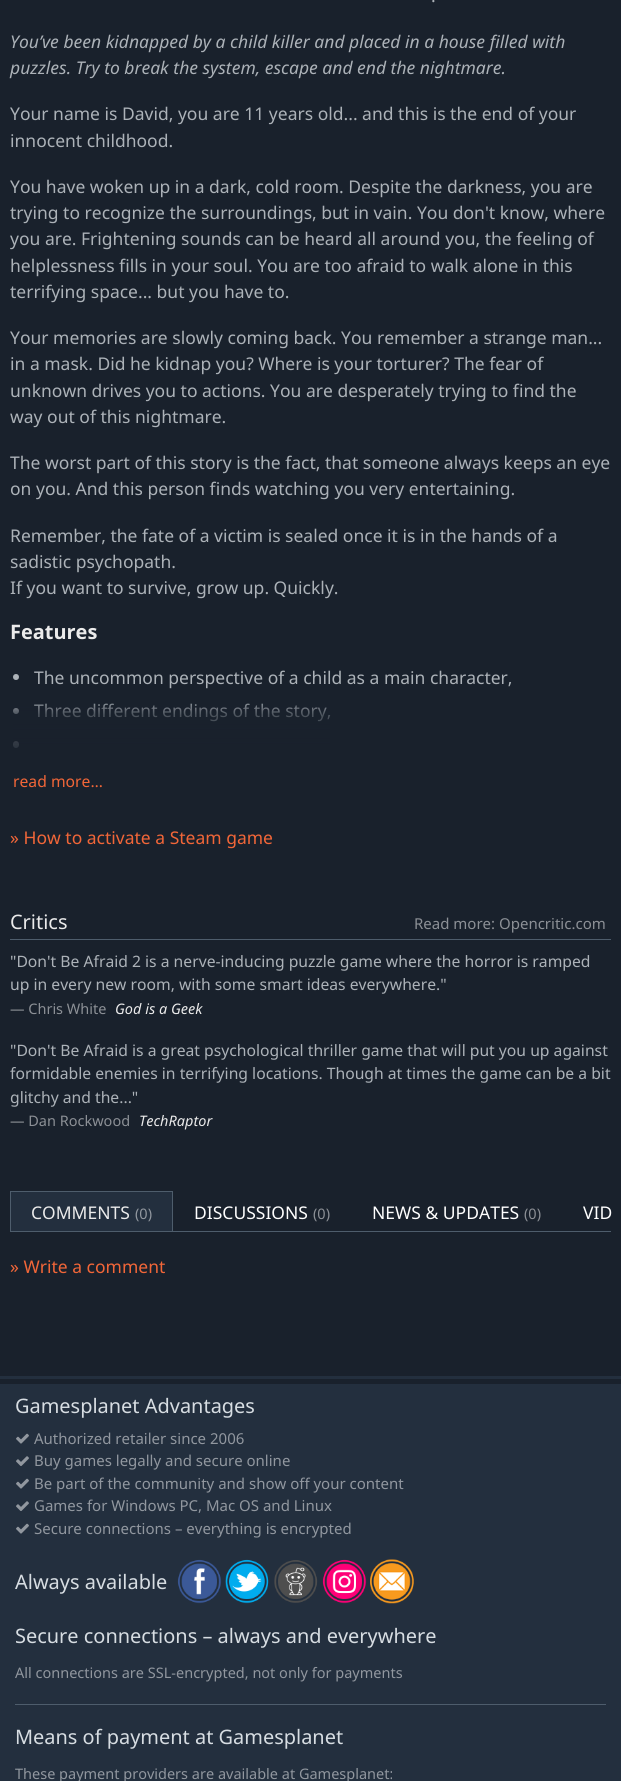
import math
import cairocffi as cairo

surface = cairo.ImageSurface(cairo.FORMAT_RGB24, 621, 1781)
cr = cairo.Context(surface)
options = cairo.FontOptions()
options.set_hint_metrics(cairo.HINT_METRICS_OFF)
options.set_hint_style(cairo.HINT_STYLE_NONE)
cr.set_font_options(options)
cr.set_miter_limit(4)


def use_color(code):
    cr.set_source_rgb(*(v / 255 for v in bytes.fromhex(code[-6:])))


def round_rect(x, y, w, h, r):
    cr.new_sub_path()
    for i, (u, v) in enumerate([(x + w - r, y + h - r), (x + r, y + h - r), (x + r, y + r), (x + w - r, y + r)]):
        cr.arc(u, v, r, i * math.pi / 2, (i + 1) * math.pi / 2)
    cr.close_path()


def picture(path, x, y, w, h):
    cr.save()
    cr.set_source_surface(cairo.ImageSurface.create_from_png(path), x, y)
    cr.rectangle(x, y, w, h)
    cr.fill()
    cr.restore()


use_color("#19212c")
cr.paint()
cr.select_font_face("Noto Sans")
cr.set_font_size(17.5)
use_color("#acb2b8")
cr.move_to(431, 2)
cr.show_text(".")
cr.select_font_face("Noto Sans", cairo.FONT_SLANT_ITALIC)
cr.move_to(10, 48)
cr.show_text("You’ve been kidnapped by a child killer and placed in a house filled with")
cr.move_to(10, 74)
cr.show_text("puzzles. Try to break the system, escape and end the nightmare.")
cr.select_font_face("Noto Sans")
cr.move_to(10, 120)
cr.show_text("Your name is David, you are 11 years old... and this is the end of your")
cr.move_to(10, 147)
cr.show_text("innocent childhood.")
cr.move_to(10, 193)
cr.show_text("You have woken up in a dark, cold room. Despite the darkness, you are")
cr.move_to(10, 219)
cr.show_text("trying to recognize the surroundings, but in vain. You don't know, where")
cr.move_to(10, 245)
cr.show_text("you are. Frightening sounds can be heard all around you, the feeling of")
cr.move_to(10, 272)
cr.show_text("helplessness fills in your soul. You are too afraid to walk alone in this")
cr.move_to(10, 298)
cr.show_text("terrifying space... but you have to.")
cr.move_to(10, 344)
cr.show_text("Your memories are slowly coming back. You remember a strange man...")
cr.move_to(10, 370)
cr.show_text("in a mask. Did he kidnap you? Where is your torturer? The fear of")
cr.move_to(10, 397)
cr.show_text("unknown drives you to actions. You are desperately trying to find the")
cr.move_to(10, 423)
cr.show_text("way out of this nightmare.")
cr.move_to(10, 469)
cr.show_text("The worst part of this story is the fact, that someone always keeps an eye")
cr.move_to(10, 495)
cr.show_text("on you. And this person finds watching you very entertaining.")
cr.move_to(10, 542)
cr.show_text("Remember, the fate of a victim is sealed once it is in the hands of a")
cr.move_to(10, 568)
cr.show_text("sadistic psychopath.")
cr.move_to(10, 594)
cr.show_text("If you want to survive, grow up. Quickly.")
cr.select_font_face("Noto Sans", cairo.FONT_SLANT_NORMAL, cairo.FONT_WEIGHT_BOLD)
cr.set_font_size(19.95)
use_color("#ebebeb")
cr.move_to(10, 639)
cr.show_text("Features")
use_color("#acb2b8")
cr.new_path()
cr.arc(16, 677, 3, 0, 2 * math.pi)
cr.fill()
cr.select_font_face("Noto Sans")
cr.set_font_size(17.5)
cr.move_to(34, 684)
cr.show_text("The uncommon perspective of a child as a main character,")
cr.new_path()
cr.arc(16, 711, 3, 0, 2 * math.pi)
cr.fill()
cr.move_to(34, 717)
cr.show_text("Three different endings of the story,")
round_rect(13, 741, 6, 7, 3)
cr.fill()
gradient = cairo.LinearGradient(311, 695, 311, 794)
gradient.add_color_stop_rgba(0, 0.098, 0.129, 0.173, 0)
gradient.add_color_stop_rgba(0.01, 0.098, 0.129, 0.173, 0)
gradient.add_color_stop_rgba(0.2, 0.098, 0.129, 0.173, 0.65)
gradient.add_color_stop_rgba(0.75, 0.098, 0.129, 0.173, 1)
cr.set_source(gradient)
cr.rectangle(13, 703, 317, 45)
cr.fill()
cr.set_font_size(15.7)
use_color("#f26638")
cr.move_to(13, 787)
cr.show_text("read more…")
cr.set_font_size(17.5)
cr.move_to(10, 844)
cr.show_text("» How to activate a Steam game")
use_color("#4e5d6c")
cr.rectangle(10, 939, 601, 1)
cr.fill()
cr.set_font_size(19.95)
use_color("#ebebeb")
cr.move_to(10, 929)
cr.show_text("Critics")
cr.set_font_size(15)
use_color("#8c9096")
cr.move_to(414, 929)
cr.show_text("Read more: Opencritic.com")
cr.set_font_size(15.7)
use_color("#acb2b8")
cr.move_to(10, 967)
cr.show_text("\"Don't Be Afraid 2 is a nerve-inducing puzzle game where the horror is ramped")
cr.move_to(10, 990)
cr.show_text("up in every new room, with some smart ideas everywhere.\"")
cr.set_font_size(14.5)
use_color("#8c9096")
cr.move_to(10, 1014)
cr.show_text("— Chris White")
cr.select_font_face("Noto Sans", cairo.FONT_SLANT_ITALIC)
use_color("#ebebeb")
cr.move_to(115, 1014)
cr.show_text("God is a Geek")
cr.select_font_face("Noto Sans")
cr.set_font_size(15.7)
use_color("#acb2b8")
cr.move_to(10, 1056)
cr.show_text("\"Don't Be Afraid is a great psychological thriller game that will put you up against")
cr.move_to(10, 1079)
cr.show_text("formidable enemies in terrifying locations. Though at times the game can be a bit")
cr.move_to(10, 1103)
cr.show_text("glitchy and the...\"")
cr.set_font_size(14.5)
use_color("#8c9096")
cr.move_to(10, 1126)
cr.show_text("— Dan Rockwood")
cr.select_font_face("Noto Sans", cairo.FONT_SLANT_ITALIC)
use_color("#ebebeb")
cr.move_to(139, 1126)
cr.show_text("TechRaptor")
use_color("#4e5d6c")
cr.rectangle(10, 1231, 601, 1)
cr.fill()
use_color("#232f3e")
cr.rectangle(11, 1192, 161, 39)
cr.fill()
cr.save()
cr.rectangle(10, 1191, 601, 40)
cr.clip()
cr.rectangle(10.5, 1191.5, 162, 41)
use_color("#4e5d6c")
cr.set_line_width(1)
cr.stroke()
cr.restore()
cr.select_font_face("Noto Sans")
cr.set_font_size(17.5)
use_color("#ebebeb")
cr.move_to(31, 1219)
cr.show_text("COMMENTS")
cr.set_font_size(14.5)
use_color("#91979f")
cr.move_to(135, 1219)
cr.show_text("(0)")
cr.set_font_size(17.5)
use_color("#ffffff")
cr.move_to(194, 1219)
cr.show_text("DISCUSSIONS")
cr.set_font_size(14.5)
use_color("#8c9096")
cr.move_to(313, 1219)
cr.show_text("(0)")
cr.set_font_size(17.5)
use_color("#ffffff")
cr.move_to(372, 1219)
cr.show_text("NEWS & UPDATES")
cr.set_font_size(14.5)
use_color("#8c9096")
cr.move_to(524, 1219)
cr.show_text("(0)")
cr.save()
cr.rectangle(10, 1191, 601, 40)
cr.clip()
cr.set_font_size(17.5)
use_color("#ffffff")
cr.move_to(583, 1219)
cr.show_text("VID")
cr.restore()
cr.set_font_size(17.5)
use_color("#f26638")
cr.move_to(10, 1273)
cr.show_text("» Write a comment")
use_color("#232f3e")
cr.rectangle(0, 1376, 621, 3)
cr.fill()
cr.rectangle(0, 1384, 621, 397)
cr.fill()
cr.set_font_size(19.95)
use_color("#d7dde2")
cr.move_to(15, 1413)
cr.show_text("Gamesplanet Advantages")
picture("img1.png", 16, 1433, 13, 11)
cr.set_font_size(15)
use_color("#91979f")
cr.move_to(34, 1444)
cr.show_text("Authorized retailer since 2006")
picture("img2.png", 16, 1456, 13, 10)
cr.move_to(34, 1466)
cr.show_text("Buy games legally and secure online")
picture("img1.png", 16, 1478, 13, 11)
cr.move_to(34, 1489)
cr.show_text("Be part of the community and show off your content")
picture("img2.png", 16, 1501, 13, 10)
cr.move_to(34, 1511)
cr.show_text("Games for Windows PC, Mac OS and Linux")
picture("img1.png", 16, 1523, 13, 11)
cr.move_to(34, 1534)
cr.show_text("Secure connections – everything is encrypted")
cr.set_font_size(19.95)
use_color("#d7dde2")
cr.move_to(15, 1589)
cr.show_text("Always available")
picture("img3.png", 177, 1559, 45, 45)
picture("img4.png", 225, 1559, 44, 45)
picture("img5.png", 274, 1560, 44, 43)
picture("img6.png", 322, 1559, 45, 45)
picture("img7.png", 370, 1559, 44, 45)
cr.move_to(15, 1643)
cr.show_text("Secure connections – always and everywhere")
cr.set_font_size(14.5)
use_color("#91979f")
cr.move_to(15, 1678)
cr.show_text("All connections are SSL-encrypted, not only for payments")
use_color("#4e5d6c")
cr.rectangle(15, 1704, 591, 1)
cr.fill()
cr.set_font_size(19.95)
use_color("#d7dde2")
cr.move_to(15, 1744)
cr.show_text("Means of payment at Gamesplanet")
cr.set_font_size(14.5)
use_color("#91979f")
cr.move_to(15, 1779)
cr.show_text("These payment providers are available at Gamesplanet:")
surface.write_to_png("result.png")
